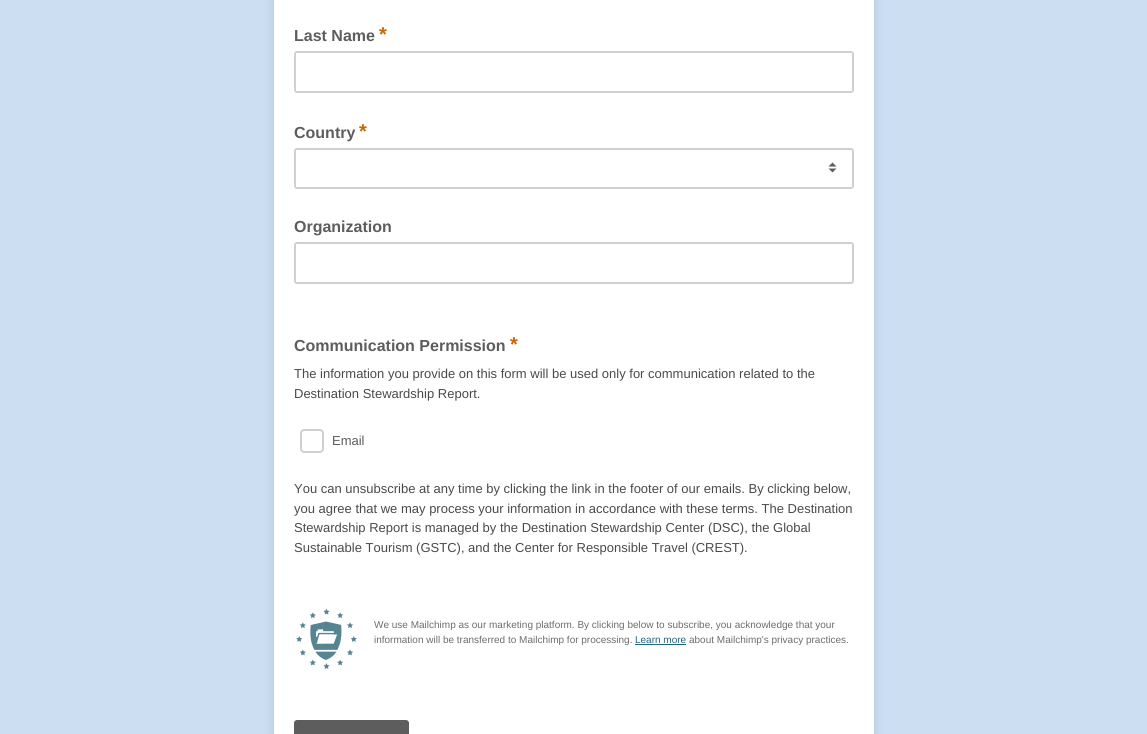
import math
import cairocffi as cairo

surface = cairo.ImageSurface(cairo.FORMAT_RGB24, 1147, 734)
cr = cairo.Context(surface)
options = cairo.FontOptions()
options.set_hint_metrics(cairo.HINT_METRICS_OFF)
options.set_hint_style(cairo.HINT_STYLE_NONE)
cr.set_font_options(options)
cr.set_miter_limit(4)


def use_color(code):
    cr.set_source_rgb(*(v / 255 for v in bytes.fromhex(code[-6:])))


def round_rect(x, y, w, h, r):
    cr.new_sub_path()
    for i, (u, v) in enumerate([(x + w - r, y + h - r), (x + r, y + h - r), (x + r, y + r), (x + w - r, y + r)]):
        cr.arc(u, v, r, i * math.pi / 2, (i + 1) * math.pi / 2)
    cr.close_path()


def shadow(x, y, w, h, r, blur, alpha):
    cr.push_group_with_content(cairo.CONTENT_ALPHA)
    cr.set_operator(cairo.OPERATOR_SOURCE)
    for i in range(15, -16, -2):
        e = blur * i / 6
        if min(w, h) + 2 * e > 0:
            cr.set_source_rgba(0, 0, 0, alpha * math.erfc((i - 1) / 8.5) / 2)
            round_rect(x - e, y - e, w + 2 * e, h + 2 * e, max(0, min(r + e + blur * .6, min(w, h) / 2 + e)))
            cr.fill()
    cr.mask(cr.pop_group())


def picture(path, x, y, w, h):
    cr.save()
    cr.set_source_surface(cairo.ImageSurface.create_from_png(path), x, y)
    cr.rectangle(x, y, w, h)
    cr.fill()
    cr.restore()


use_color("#cbdef2")
cr.paint()
use_color("#0d1216")
shadow(274, -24, 600, 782, 6, 6, 0.12)
use_color("#ffffff")
cr.rectangle(274, 0, 600, 734)
cr.fill()
cr.select_font_face("Liberation Sans", cairo.FONT_SLANT_NORMAL, cairo.FONT_WEIGHT_BOLD)
cr.set_font_size(16)
use_color("#5d5d5d")
cr.move_to(294, 41)
cr.show_text("Last Name")
cr.set_font_size(20)
use_color("#cc6600")
cr.move_to(379, 41)
cr.show_text("*")
round_rect(295, 52, 558, 40, 2)
use_color("#d0d0d0")
cr.stroke()
cr.set_font_size(16)
use_color("#5d5d5d")
cr.move_to(294, 138)
cr.show_text("Country")
cr.set_font_size(20)
use_color("#cc6600")
cr.move_to(359, 138)
cr.show_text("*")
picture("img1.png", 828, 162, 9, 11)
round_rect(295, 149, 558, 39, 2)
use_color("#d0d0d0")
cr.stroke()
cr.set_font_size(16)
use_color("#5d5d5d")
cr.move_to(294, 232)
cr.show_text("Organization")
round_rect(295, 243, 558, 40, 2)
use_color("#d0d0d0")
cr.stroke()
use_color("#5d5d5d")
cr.move_to(294, 351)
cr.show_text("Communication Permission")
cr.set_font_size(20)
use_color("#cc6600")
cr.move_to(510, 351)
cr.show_text("*")
cr.select_font_face("Liberation Sans")
cr.set_font_size(13)
use_color("#4a4a4a")
cr.move_to(294, 378)
cr.show_text("The information you provide on this form will be used only for communication related to the")
cr.move_to(294, 398)
cr.show_text("Destination Stewardship Report.")
picture("img2.png", 300, 429, 24, 24)
use_color("#5d5d5d")
cr.move_to(332, 445)
cr.show_text("Email")
use_color("#4a4a4a")
cr.move_to(294, 493)
cr.show_text("You can unsubscribe at any time by clicking the link in the footer of our emails. By clicking below,")
cr.move_to(294, 513)
cr.show_text("you agree that we may process your information in accordance with these terms. The Destination")
cr.move_to(294, 532)
cr.show_text("Stewardship Report is managed by the Destination Stewardship Center (DSC), the Global")
cr.move_to(294, 552)
cr.show_text("Sustainable Tourism (GSTC), and the Center for Responsible Travel (CREST).")
picture("img3.png", 296, 608, 61, 61)
cr.set_font_size(10)
use_color("#6d6d6d")
cr.move_to(374, 628)
cr.show_text("We use Mailchimp as our marketing platform. By clicking below to subscribe, you acknowledge that your")
cr.move_to(374, 643)
cr.show_text("information will be transferred to Mailchimp for processing.")
use_color("#206578")
cr.move_to(635, 643)
cr.show_text("Learn more")
cr.rectangle(635, 644, 51, 1)
cr.fill()
use_color("#6d6d6d")
cr.move_to(689, 643)
cr.show_text("about Mailchimp's privacy practices.")
use_color("#5d5d5d")
round_rect(294, 720, 115, 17, 3)
cr.fill()
surface.write_to_png("result.png")
